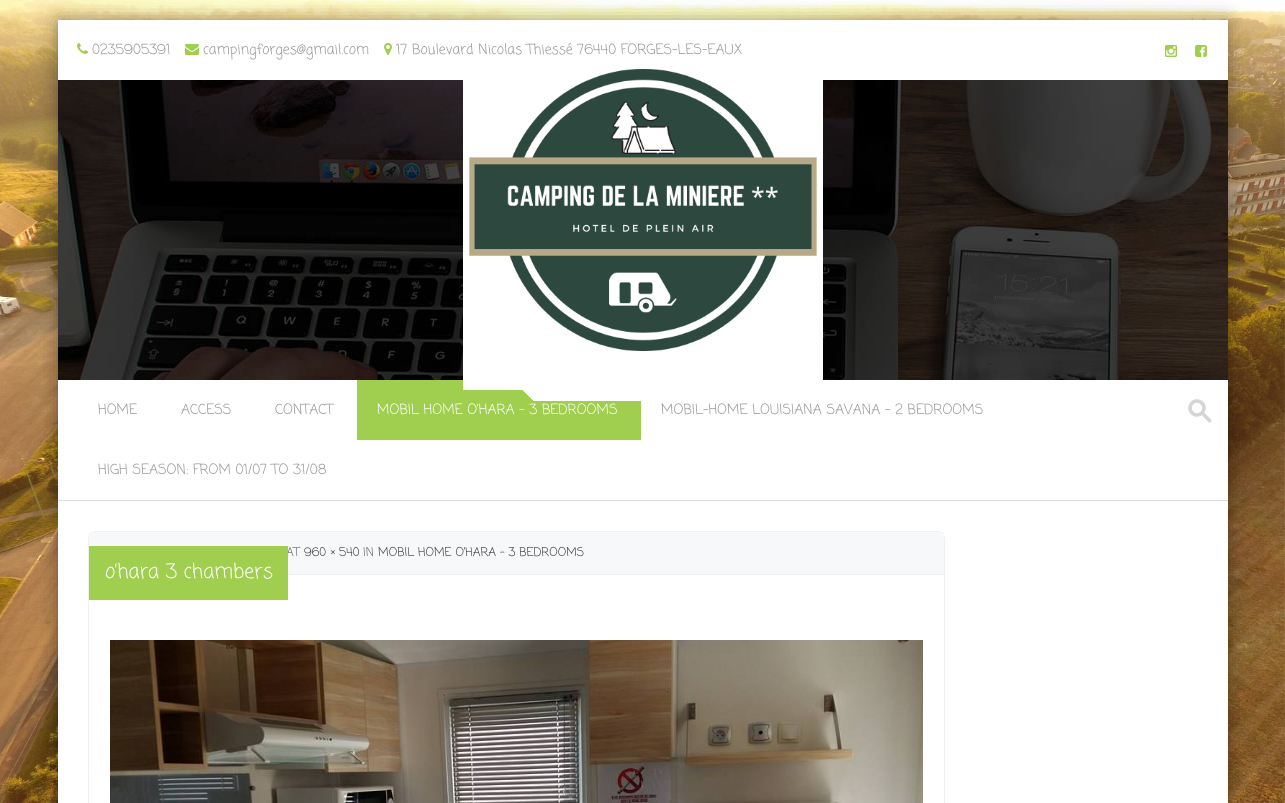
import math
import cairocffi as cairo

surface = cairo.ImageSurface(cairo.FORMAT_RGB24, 1285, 803)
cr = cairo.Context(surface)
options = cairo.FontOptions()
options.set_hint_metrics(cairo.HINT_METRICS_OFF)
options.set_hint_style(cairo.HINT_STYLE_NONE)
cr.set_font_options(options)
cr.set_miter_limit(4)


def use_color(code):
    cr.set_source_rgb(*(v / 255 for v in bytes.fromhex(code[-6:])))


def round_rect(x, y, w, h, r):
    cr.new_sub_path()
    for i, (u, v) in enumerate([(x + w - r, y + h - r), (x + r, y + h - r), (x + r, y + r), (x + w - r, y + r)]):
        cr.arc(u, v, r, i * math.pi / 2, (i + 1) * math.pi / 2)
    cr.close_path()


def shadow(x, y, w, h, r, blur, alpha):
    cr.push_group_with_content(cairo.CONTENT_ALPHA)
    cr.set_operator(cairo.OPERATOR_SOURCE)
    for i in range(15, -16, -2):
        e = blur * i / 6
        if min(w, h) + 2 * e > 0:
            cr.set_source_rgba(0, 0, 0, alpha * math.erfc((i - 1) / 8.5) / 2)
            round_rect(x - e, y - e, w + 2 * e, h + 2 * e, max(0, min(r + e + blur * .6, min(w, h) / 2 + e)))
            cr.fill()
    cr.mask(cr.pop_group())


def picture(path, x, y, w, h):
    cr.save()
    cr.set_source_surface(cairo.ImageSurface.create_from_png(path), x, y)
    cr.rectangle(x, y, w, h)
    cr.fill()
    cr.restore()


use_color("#ffffff")
cr.paint()
picture("img1.png", 0, 0, 1285, 803)
use_color("#000000")
shadow(58, 20, 1170, 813, 0, 10, 0.4)
use_color("#ffffff")
cr.rectangle(58, 20, 1170, 60)
cr.fill()
picture("img2.png", 77, 43, 11, 11)
cr.select_font_face("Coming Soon")
cr.set_font_size(14)
use_color("#999999")
cr.move_to(92, 54)
cr.show_text("0235905391")
picture("img3.png", 185, 44, 14, 11)
cr.move_to(203, 54)
cr.show_text("campingforges@gmail.com")
picture("img4.png", 384, 43, 8, 12)
cr.move_to(396, 54)
cr.show_text("17 Boulevard Nicolas Thiessé 76440 FORGES-LES-EAUX")
picture("img5.png", 1165, 45, 12, 12)
picture("img6.png", 1195, 45, 12, 12)
use_color("#ffffff")
cr.rectangle(58, 380, 1170, 120)
cr.fill()
use_color("#a0ce4e")
cr.rectangle(357, 380, 284, 60)
cr.fill()
gradient = cairo.LinearGradient(460, 398, 646, 213)
gradient.add_color_stop_rgba(0.19, 1, 1, 1, 0)
gradient.add_color_stop_rgba(0.19, 1, 1, 1, 1)
cr.set_source(gradient)
cr.rectangle(523, 390, 118, 11)
cr.fill()
picture("img8.png", 58, 80, 1170, 300)
picture("img7.png", 463, 69, 360, 321)
use_color("#dddddd")
cr.rectangle(58, 500, 1170, 1)
cr.fill()
use_color("#999999")
cr.move_to(98, 414)
cr.show_text("HOME")
cr.move_to(181, 414)
cr.show_text("ACCESS")
cr.move_to(275, 414)
cr.show_text("CONTACT")
use_color("#ffffff")
cr.move_to(377, 414)
cr.show_text("MOBIL HOME O’HARA – 3 BEDROOMS")
use_color("#999999")
cr.move_to(661, 414)
cr.show_text("MOBIL-HOME LOUISIANA SAVANA – 2 BEDROOMS")
cr.move_to(98, 474)
cr.show_text("HIGH SEASON: FROM 01/07 TO 31/08")
picture("img9.png", 1188, 399, 24, 24)
use_color("#ffffff")
cr.rectangle(58, 501, 1170, 302)
cr.fill()
round_rect(88.5, 531.5, 856, 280, 7.5)
use_color("#efefef")
cr.set_line_width(1)
cr.stroke()
use_color("#f7f8fa")
cr.rectangle(89, 532, 855, 42)
cr.fill()
use_color("#ecf1f5")
cr.rectangle(288, 574, 656, 1)
cr.fill()
cr.set_font_size(12)
use_color("#666666")
cr.move_to(286, 556)
cr.show_text("AT")
use_color("#3c4044")
cr.move_to(304, 556)
cr.show_text("960 × 540")
use_color("#666666")
cr.move_to(363, 556)
cr.show_text("IN")
use_color("#3c4044")
cr.move_to(378, 556)
cr.show_text("MOBIL HOME O’HARA – 3 BEDROOMS")
use_color("#a0ce4e")
cr.rectangle(89, 546, 199, 54)
cr.fill()
cr.set_font_size(20)
use_color("#ffffff")
cr.move_to(105, 578)
cr.show_text("o’hara 3 chambers")
picture("img10.png", 110, 640, 813, 163)
surface.write_to_png("result.png")
